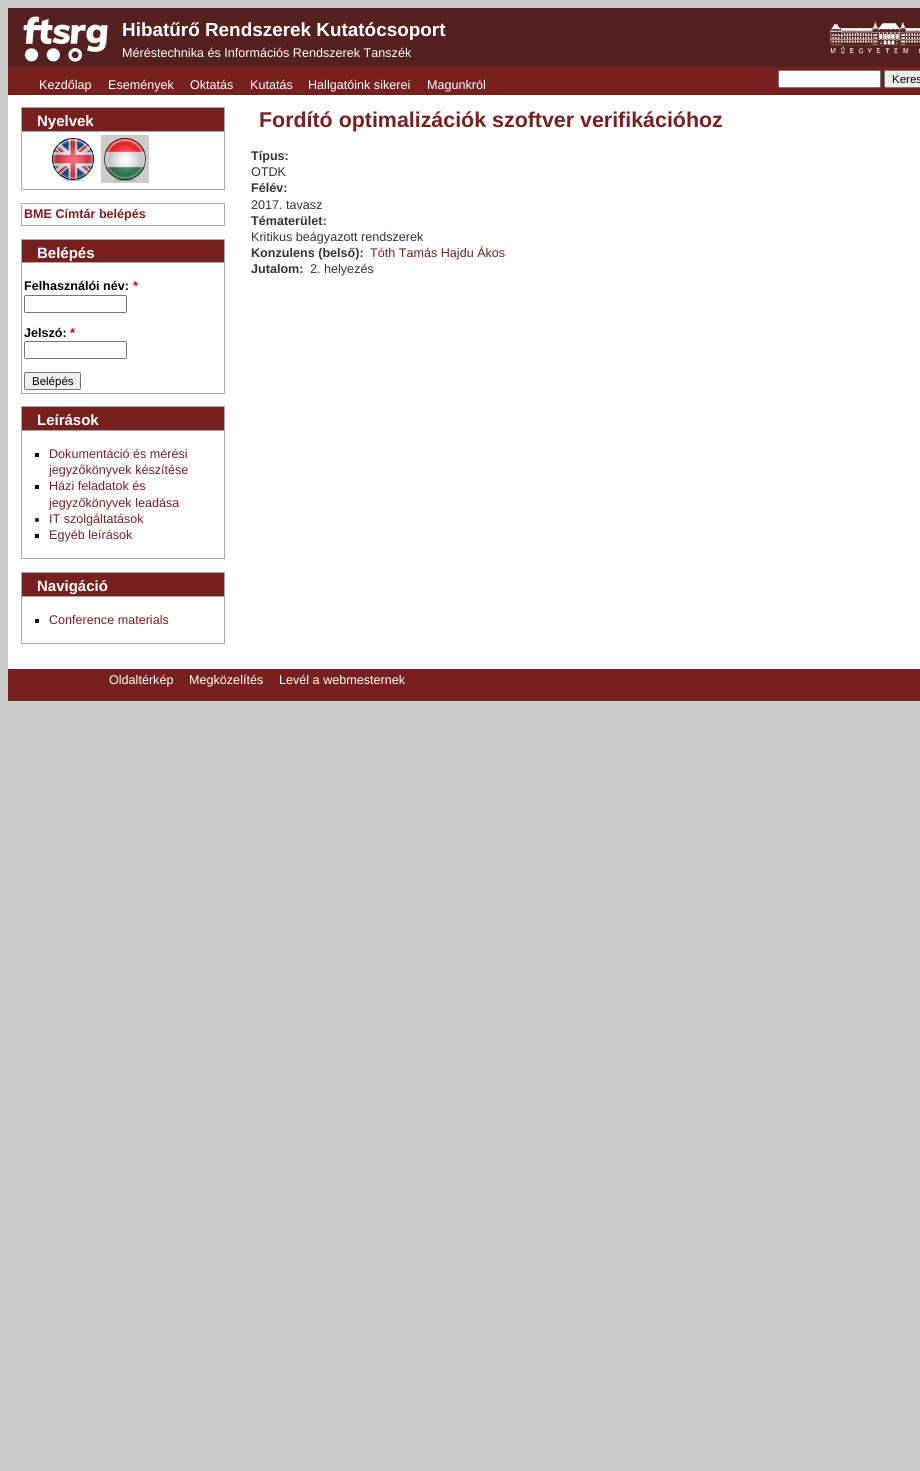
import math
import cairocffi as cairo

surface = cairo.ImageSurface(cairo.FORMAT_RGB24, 920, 1471)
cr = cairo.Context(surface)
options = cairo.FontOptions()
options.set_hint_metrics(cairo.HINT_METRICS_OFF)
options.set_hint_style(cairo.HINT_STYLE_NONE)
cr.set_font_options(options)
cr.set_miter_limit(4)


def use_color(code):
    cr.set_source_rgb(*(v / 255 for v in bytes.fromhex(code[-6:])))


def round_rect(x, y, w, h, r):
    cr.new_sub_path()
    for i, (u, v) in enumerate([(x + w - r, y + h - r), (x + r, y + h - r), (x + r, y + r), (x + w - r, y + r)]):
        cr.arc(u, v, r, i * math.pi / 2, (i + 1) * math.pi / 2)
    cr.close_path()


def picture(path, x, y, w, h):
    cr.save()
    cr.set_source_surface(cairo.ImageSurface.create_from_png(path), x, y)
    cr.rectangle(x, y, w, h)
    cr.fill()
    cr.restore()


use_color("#cccccc")
cr.paint()
use_color("#ffffff")
cr.rectangle(8, 95, 912, 574)
cr.fill()
use_color("#552020")
cr.rectangle(8, 8, 912, 59)
cr.fill()
picture("img1.png", 23, 16, 85, 46)
cr.select_font_face("Liberation Sans", cairo.FONT_SLANT_NORMAL, cairo.FONT_WEIGHT_BOLD)
cr.set_font_size(18.9)
use_color("#ffffff")
cr.move_to(122, 36)
cr.show_text("Hibatűrő Rendszerek Kutatócsoport")
cr.select_font_face("Liberation Sans")
cr.set_font_size(12.6)
cr.move_to(122, 57)
cr.show_text("Méréstechnika és Információs Rendszerek Tanszék")
picture("img2.png", 829, 20, 91, 34)
use_color("#772020")
cr.rectangle(8, 67, 912, 28)
cr.fill()
use_color("#ffffff")
cr.move_to(39, 89)
cr.show_text("Kezdőlap")
cr.move_to(108, 89)
cr.show_text("Események")
cr.move_to(190, 89)
cr.show_text("Oktatás")
cr.move_to(250, 89)
cr.show_text("Kutatás")
cr.move_to(308, 89)
cr.show_text("Hallgatóink sikerei")
cr.move_to(427, 89)
cr.show_text("Magunkról")
round_rect(778.5, 70.5, 102, 17, 1.5)
cr.fill_preserve()
use_color("#767676")
cr.set_line_width(1)
cr.stroke()
use_color("#efefef")
round_rect(884.5, 70.5, 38, 17, 1.5)
cr.fill_preserve()
use_color("#767676")
cr.stroke()
cr.set_font_size(11.5)
use_color("#000000")
cr.move_to(892, 83)
cr.show_text("Keres")
cr.rectangle(21.5, 107.5, 203, 82)
use_color("#aaaaaa")
cr.stroke()
use_color("#772020")
cr.rectangle(22, 108, 202, 23)
cr.fill()
use_color("#aaaaaa")
cr.rectangle(22, 131, 202, 1)
cr.fill()
cr.select_font_face("Liberation Sans", cairo.FONT_SLANT_NORMAL, cairo.FONT_WEIGHT_BOLD)
cr.set_font_size(15)
use_color("#ffffff")
cr.move_to(37, 126)
cr.show_text("Nyelvek")
picture("img3.png", 52, 138, 42, 43)
use_color("#cccccc")
cr.rectangle(101, 135, 48, 48)
cr.fill()
picture("img4.png", 104, 138, 42, 43)
cr.rectangle(21.5, 203.5, 203, 22)
use_color("#aaaaaa")
cr.stroke()
cr.set_font_size(12.6)
use_color("#772020")
cr.move_to(24, 218)
cr.show_text("BME Címtár belépés")
cr.rectangle(21.5, 239.5, 203, 154)
use_color("#aaaaaa")
cr.stroke()
use_color("#772020")
cr.rectangle(22, 240, 202, 22)
cr.fill()
use_color("#aaaaaa")
cr.rectangle(22, 262, 202, 1)
cr.fill()
cr.set_font_size(15)
use_color("#ffffff")
cr.move_to(37, 258)
cr.show_text("Belépés")
cr.set_font_size(12.6)
use_color("#000000")
cr.move_to(24, 290)
cr.show_text("Felhasználói név:")
use_color("#cc0000")
cr.move_to(133, 290)
cr.show_text("*")
round_rect(24.5, 295.5, 102, 17, 1.5)
use_color("#767676")
cr.stroke()
use_color("#000000")
cr.move_to(24, 337)
cr.show_text("Jelszó:")
use_color("#cc0000")
cr.move_to(70, 337)
cr.show_text("*")
round_rect(24.5, 341.5, 102, 17, 1.5)
use_color("#767676")
cr.stroke()
use_color("#efefef")
round_rect(24.5, 372.5, 56, 17, 1.5)
cr.fill_preserve()
use_color("#767676")
cr.stroke()
cr.select_font_face("Liberation Sans")
cr.set_font_size(11.5)
use_color("#000000")
cr.move_to(32, 385)
cr.show_text("Belépés")
cr.rectangle(21.5, 406.5, 203, 152)
use_color("#aaaaaa")
cr.stroke()
use_color("#772020")
cr.rectangle(22, 407, 202, 23)
cr.fill()
use_color("#aaaaaa")
cr.rectangle(22, 430, 202, 1)
cr.fill()
cr.select_font_face("Liberation Sans", cairo.FONT_SLANT_NORMAL, cairo.FONT_WEIGHT_BOLD)
cr.set_font_size(15)
use_color("#ffffff")
cr.move_to(37, 425)
cr.show_text("Leírások")
use_color("#000000")
cr.rectangle(35, 453, 4, 4)
cr.fill()
cr.select_font_face("Liberation Sans")
cr.set_font_size(12.6)
use_color("#772020")
cr.move_to(49, 458)
cr.show_text("Dokumentáció és mérési")
cr.move_to(49, 474)
cr.show_text("jegyzőkönyvek készítése")
use_color("#000000")
cr.rectangle(35, 485, 4, 4)
cr.fill()
use_color("#772020")
cr.move_to(49, 490)
cr.show_text("Házi feladatok és")
cr.move_to(49, 507)
cr.show_text("jegyzőkönyvek leadása")
use_color("#000000")
cr.new_path()
cr.arc(37, 520, 2, 0, 2 * math.pi)
cr.fill()
use_color("#772020")
cr.move_to(49, 523)
cr.show_text("IT szolgáltatások")
use_color("#000000")
cr.rectangle(35, 534, 4, 4)
cr.fill()
use_color("#772020")
cr.move_to(49, 539)
cr.show_text("Egyéb leírások")
cr.rectangle(21.5, 572.5, 203, 71)
use_color("#aaaaaa")
cr.stroke()
use_color("#772020")
cr.rectangle(22, 573, 202, 23)
cr.fill()
use_color("#aaaaaa")
cr.rectangle(22, 596, 202, 1)
cr.fill()
cr.select_font_face("Liberation Sans", cairo.FONT_SLANT_NORMAL, cairo.FONT_WEIGHT_BOLD)
cr.set_font_size(15)
use_color("#ffffff")
cr.move_to(37, 591)
cr.show_text("Navigáció")
use_color("#000000")
cr.rectangle(35, 619, 4, 4)
cr.fill()
cr.select_font_face("Liberation Sans")
cr.set_font_size(12.6)
use_color("#772020")
cr.move_to(49, 624)
cr.show_text("Conference materials")
cr.select_font_face("Liberation Sans", cairo.FONT_SLANT_NORMAL, cairo.FONT_WEIGHT_BOLD)
cr.set_font_size(21.4)
cr.move_to(259, 127)
cr.show_text("Fordító optimalizációk szoftver verifikációhoz")
cr.set_font_size(12.6)
use_color("#333333")
cr.move_to(251, 160)
cr.show_text("Típus:")
cr.select_font_face("Liberation Sans")
cr.move_to(251, 176)
cr.show_text("OTDK")
cr.select_font_face("Liberation Sans", cairo.FONT_SLANT_NORMAL, cairo.FONT_WEIGHT_BOLD)
cr.move_to(251, 192)
cr.show_text("Félév:")
cr.select_font_face("Liberation Sans")
cr.move_to(251, 209)
cr.show_text("2017. tavasz")
cr.select_font_face("Liberation Sans", cairo.FONT_SLANT_NORMAL, cairo.FONT_WEIGHT_BOLD)
cr.move_to(251, 225)
cr.show_text("Tématerület:")
cr.select_font_face("Liberation Sans")
cr.move_to(251, 241)
cr.show_text("Kritikus beágyazott rendszerek")
cr.select_font_face("Liberation Sans", cairo.FONT_SLANT_NORMAL, cairo.FONT_WEIGHT_BOLD)
cr.move_to(251, 257)
cr.show_text("Konzulens (belső):")
cr.select_font_face("Liberation Sans")
use_color("#772020")
cr.move_to(370, 257)
cr.show_text("Tóth Tamás Hajdu Ákos")
cr.select_font_face("Liberation Sans", cairo.FONT_SLANT_NORMAL, cairo.FONT_WEIGHT_BOLD)
use_color("#333333")
cr.move_to(251, 273)
cr.show_text("Jutalom:")
cr.select_font_face("Liberation Sans")
cr.move_to(310, 273)
cr.show_text("2. helyezés")
use_color("#772020")
cr.rectangle(8, 669, 912, 32)
cr.fill()
use_color("#ffffff")
cr.move_to(109, 684)
cr.show_text("Oldaltérkép")
cr.move_to(189, 684)
cr.show_text("Megközelítés")
cr.move_to(279, 684)
cr.show_text("Levél a webmesternek")
surface.write_to_png("result.png")
